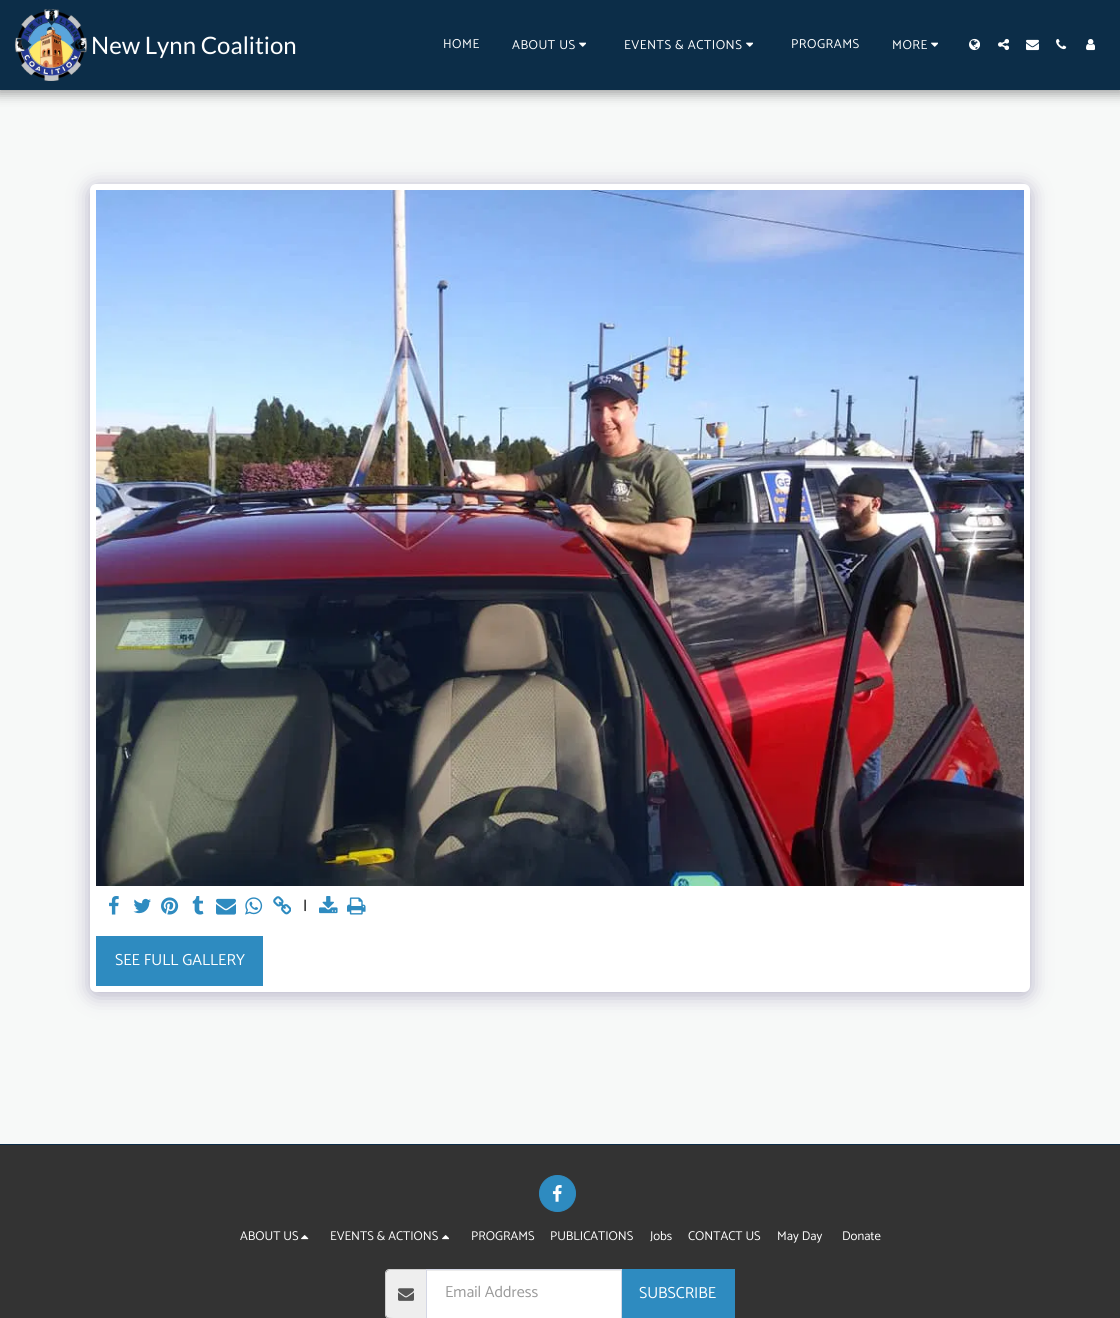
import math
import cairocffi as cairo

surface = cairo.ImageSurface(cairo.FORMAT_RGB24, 1120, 1318)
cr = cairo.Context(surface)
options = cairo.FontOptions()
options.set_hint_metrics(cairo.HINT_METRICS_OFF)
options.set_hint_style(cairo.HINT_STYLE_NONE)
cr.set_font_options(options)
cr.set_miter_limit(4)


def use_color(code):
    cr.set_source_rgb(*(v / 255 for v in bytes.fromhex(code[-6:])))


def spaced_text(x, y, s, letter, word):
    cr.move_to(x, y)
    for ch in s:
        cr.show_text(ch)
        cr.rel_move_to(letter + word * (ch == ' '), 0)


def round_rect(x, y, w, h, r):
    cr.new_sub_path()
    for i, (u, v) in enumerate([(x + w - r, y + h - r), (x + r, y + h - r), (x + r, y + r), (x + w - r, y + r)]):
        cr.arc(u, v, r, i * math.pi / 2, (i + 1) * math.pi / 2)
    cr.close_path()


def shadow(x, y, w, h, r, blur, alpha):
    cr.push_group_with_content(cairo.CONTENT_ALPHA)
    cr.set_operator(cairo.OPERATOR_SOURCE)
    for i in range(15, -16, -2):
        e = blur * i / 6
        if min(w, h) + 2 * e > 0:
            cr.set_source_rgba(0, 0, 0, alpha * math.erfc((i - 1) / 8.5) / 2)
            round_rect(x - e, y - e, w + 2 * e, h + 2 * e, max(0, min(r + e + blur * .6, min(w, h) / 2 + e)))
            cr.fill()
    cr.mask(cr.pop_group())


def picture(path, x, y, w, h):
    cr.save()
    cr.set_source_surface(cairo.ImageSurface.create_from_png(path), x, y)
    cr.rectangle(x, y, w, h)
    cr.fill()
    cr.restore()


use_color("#f7f9f8")
cr.paint()
use_color("#000000")
shadow(-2, 0, 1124, 94, 0, 6, 0.35)
use_color("#0c2d48")
cr.rectangle(0, 0, 1120, 90)
cr.fill()
picture("img1.png", 15, 9, 72, 72)
cr.select_font_face("Lato")
cr.set_font_size(24)
use_color("#ffffff")
cr.move_to(91, 54)
cr.show_text("New Lynn Coalition")
cr.select_font_face("Catamaran")
cr.set_font_size(13)
spaced_text(443, 48, "HOME", 0.5, 0)
spaced_text(512, 49, "ABOUT US", 0.5, 0)
picture("img2.png", 579, 42, 7, 5)
spaced_text(624, 49, "EVENTS & ACTIONS", 0.5, 0)
picture("img2.png", 746, 42, 7, 5)
spaced_text(791, 48, "PROGRAMS", 0.5, 0)
spaced_text(892, 49, "MORE", 0.5, 0)
picture("img2.png", 931, 42, 7, 5)
picture("img3.png", 969, 38, 11, 13)
picture("img4.png", 998, 38, 11, 13)
picture("img5.png", 1026, 39, 13, 12)
picture("img6.png", 1056, 39, 11, 11)
picture("img7.png", 1086, 39, 9, 12)
use_color("#4d3f7a")
shadow(90, 187, 940, 808, 6, 10, 0.4)
use_color("#ffffff")
round_rect(90, 184, 940, 808, 6)
cr.fill()
picture("img8.png", 96, 190, 928, 696)
picture("img9.png", 109, 896, 10, 19)
picture("img10.png", 133, 898, 18, 16)
picture("img11.png", 161, 897, 18, 18)
picture("img12.png", 192, 896, 12, 19)
picture("img13.png", 216, 898, 20, 17)
picture("img14.png", 245, 897, 18, 18)
picture("img15.png", 273, 896, 18, 19)
cr.set_font_size(16)
use_color("#000000")
cr.move_to(303, 911)
cr.show_text("|")
picture("img16.png", 319, 896, 19, 18)
picture("img17.png", 347, 897, 19, 18)
use_color("#2e8bc0")
cr.rectangle(96, 936, 167, 50)
cr.fill()
use_color("#ffffff")
cr.move_to(115, 965)
cr.show_text("SEE FULL GALLERY")
use_color("#0c2d48")
cr.rectangle(0, 1144, 1120, 1)
cr.fill()
use_color("#333333")
cr.rectangle(0, 1145, 1120, 173)
cr.fill()
use_color("#2e8bc0")
cr.arc(557.5, 1193.5, 18, 0, 2 * math.pi)
cr.fill_preserve()
cr.set_line_width(1)
cr.stroke()
picture("img18.png", 552, 1185, 10, 17)
cr.set_font_size(12.75)
use_color("#ffffff")
cr.move_to(240, 1240)
cr.show_text("ABOUT US")
picture("img19.png", 301, 1235, 8, 5)
cr.move_to(330, 1240)
cr.show_text("EVENTS & ACTIONS")
picture("img20.png", 442, 1235, 7, 5)
cr.move_to(471, 1240)
cr.show_text("PROGRAMS")
cr.move_to(550, 1240)
cr.show_text("PUBLICATIONS")
cr.move_to(650, 1240)
cr.show_text("Jobs")
cr.move_to(688, 1240)
cr.show_text("CONTACT US")
cr.move_to(777, 1240)
cr.show_text("May Day")
cr.move_to(842, 1240)
cr.show_text("Donate")
use_color("#eeeeee")
cr.new_path()
cr.move_to(389, 1270)
cr.line_to(426, 1270)
cr.line_to(426, 1318)
cr.line_to(389, 1318)
cr.curve_to(387.5, 1318, 386, 1316.5, 386, 1315)
cr.line_to(386, 1273)
cr.curve_to(386, 1271.5, 387.5, 1270, 389, 1270)
cr.close_path()
cr.fill()
use_color("#cccccc")
cr.set_fill_rule(cairo.FILL_RULE_EVEN_ODD)
cr.new_path()
cr.move_to(389, 1269)
cr.line_to(426, 1269)
cr.line_to(426, 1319)
cr.line_to(389, 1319)
cr.curve_to(387, 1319, 385, 1317, 385, 1315)
cr.line_to(385, 1273)
cr.curve_to(385, 1271, 387, 1269, 389, 1269)
cr.close_path()
cr.move_to(389, 1270)
cr.line_to(426, 1270)
cr.line_to(426, 1318)
cr.curve_to(421, 1318, 389, 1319, 387, 1317)
cr.line_to(386, 1316)
cr.line_to(386, 1272)
cr.line_to(387, 1271)
cr.close_path()
cr.fill()
picture("img21.png", 398, 1288, 16, 13)
use_color("#ffffff")
cr.rectangle(427, 1271, 194, 47)
cr.fill()
use_color("#ececec")
cr.rectangle(427, 1270, 194, 1)
cr.fill()
cr.rectangle(426.5, 1269.5, 195, 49)
use_color("#d4d7e5")
cr.stroke()
cr.set_font_size(16)
use_color("#999999")
cr.move_to(445, 1297)
cr.show_text("Email Address")
use_color("#2e8bc0")
cr.rectangle(622, 1269, 113, 49)
cr.fill()
use_color("#ffffff")
cr.move_to(639, 1298)
cr.show_text("SUBSCRIBE")
surface.write_to_png("result.png")
